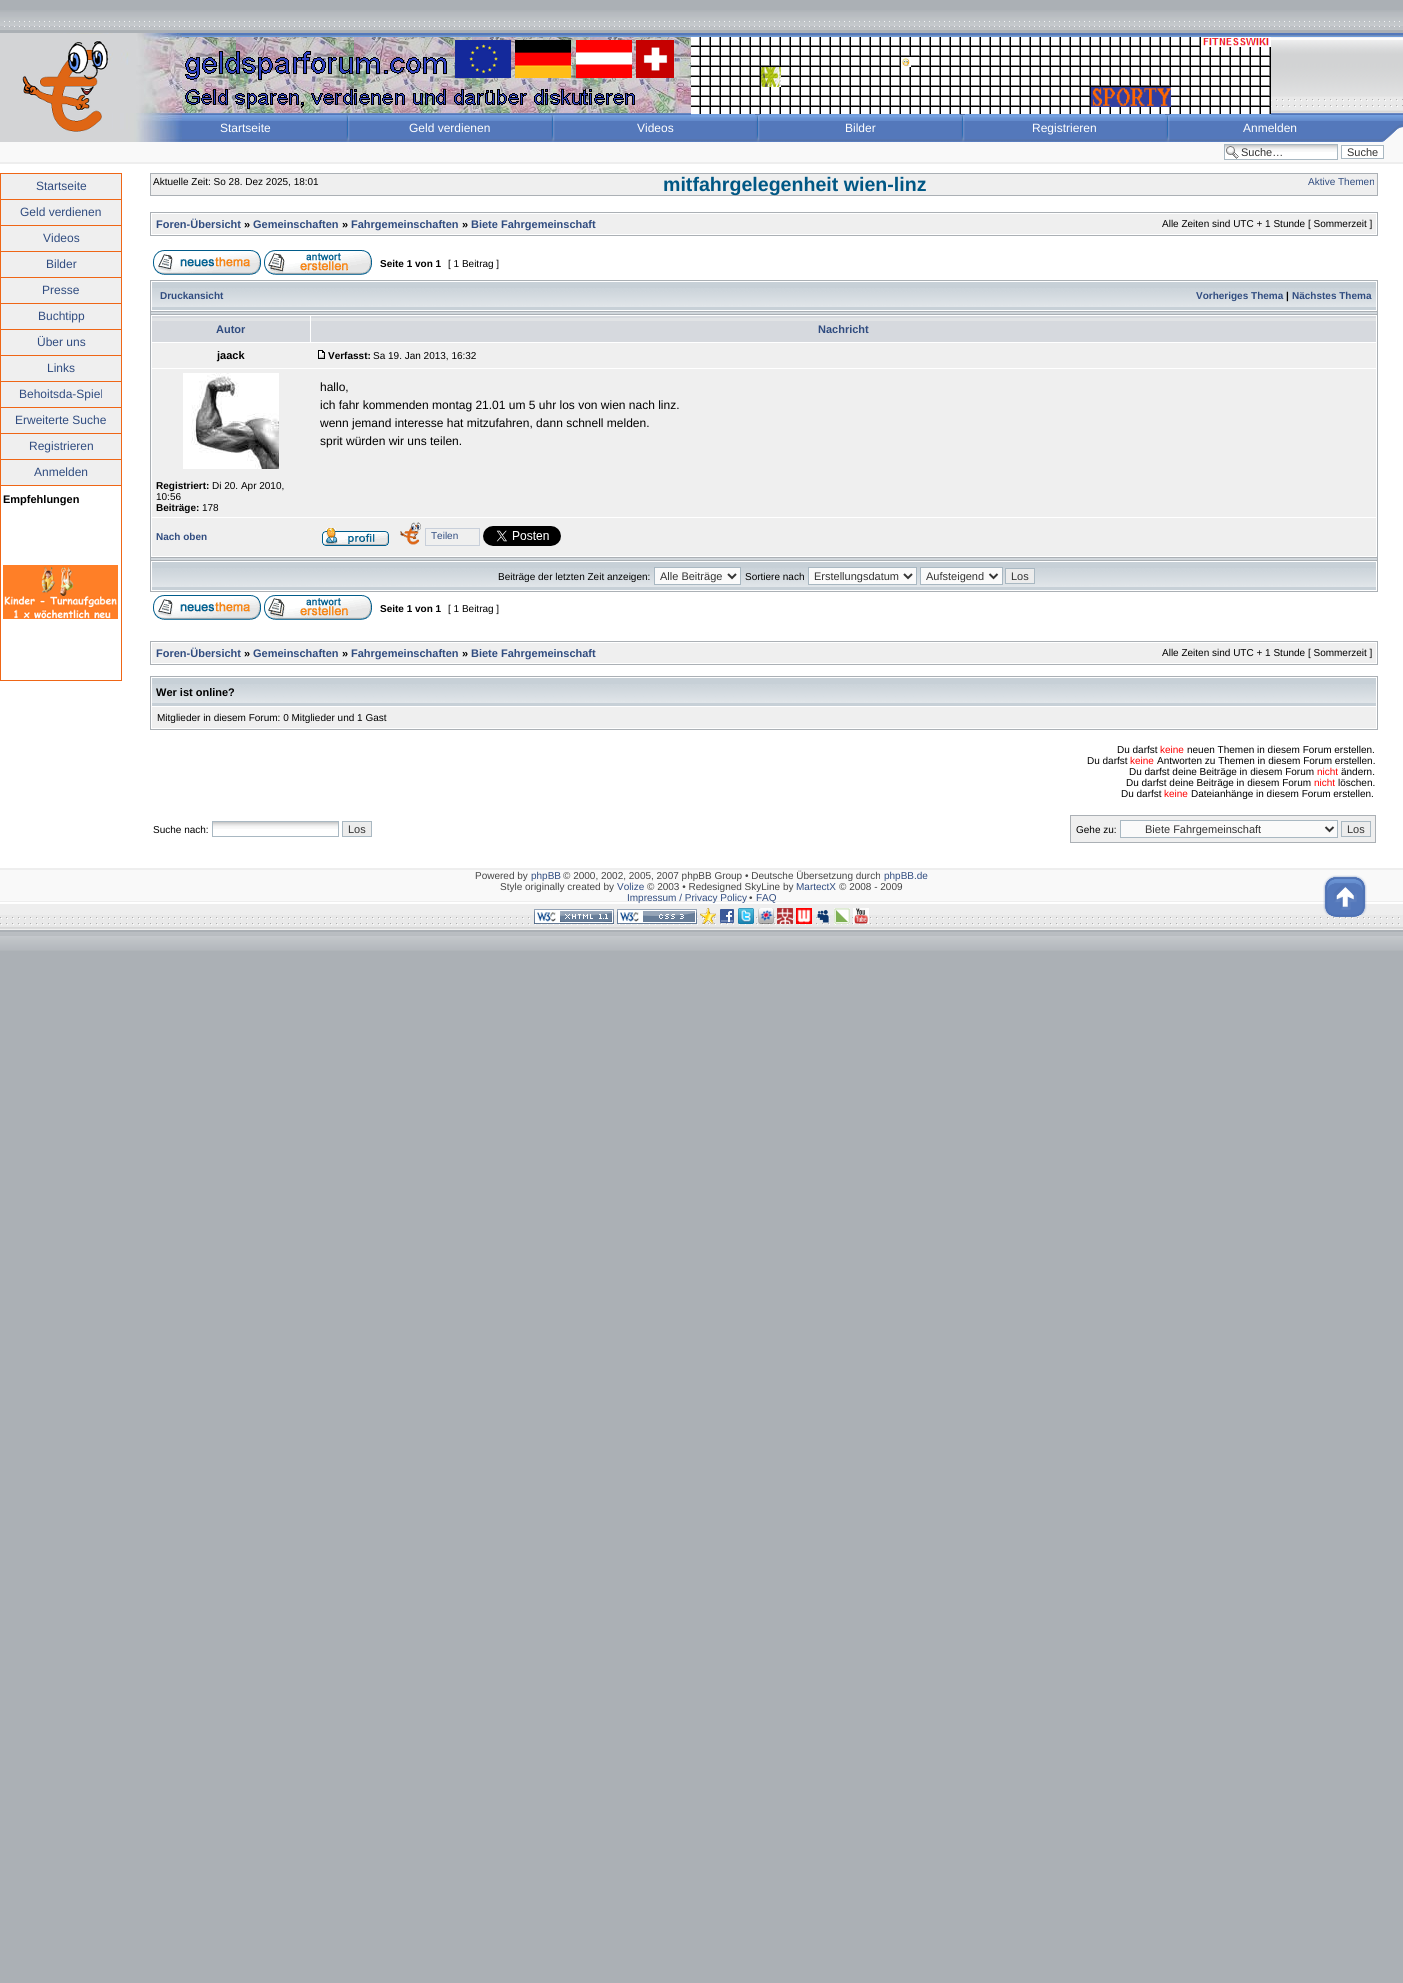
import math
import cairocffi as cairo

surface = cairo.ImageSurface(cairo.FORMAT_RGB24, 1403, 1983)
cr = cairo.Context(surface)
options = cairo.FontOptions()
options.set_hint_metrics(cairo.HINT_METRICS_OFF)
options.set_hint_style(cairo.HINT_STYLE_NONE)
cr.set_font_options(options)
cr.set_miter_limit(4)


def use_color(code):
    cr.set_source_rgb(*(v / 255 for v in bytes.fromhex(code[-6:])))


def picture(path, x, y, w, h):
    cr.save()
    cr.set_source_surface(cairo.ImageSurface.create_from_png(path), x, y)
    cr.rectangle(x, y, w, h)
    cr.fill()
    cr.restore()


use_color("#abb0b5")
cr.paint()
use_color("#ffffff")
cr.rectangle(0, 164, 1403, 704)
cr.fill()
picture("img1.png", 0, 10, 1403, 23)
picture("img2.png", 182, 33, 1221, 109)
picture("img3.png", 0, 33, 182, 109)
picture("img4.png", 182, 37, 509, 76)
picture("img5.png", 691, 37, 580, 77)
picture("img6.png", 1201, 37, 70, 10)
picture("img7.png", 901, 57, 10, 10)
picture("img8.png", 761, 67, 20, 20)
picture("img9.png", 1091, 87, 80, 20)
picture("img10.png", 185, 40, 489, 69)
use_color("#74a0df")
cr.rectangle(691, 114, 580, 3)
cr.fill()
cr.select_font_face("Liberation Sans")
cr.set_font_size(12)
use_color("#ffffff")
cr.move_to(220, 132)
cr.show_text("Startseite")
picture("img11.png", 346, 114, 4, 28)
cr.move_to(409, 132)
cr.show_text("Geld verdienen")
picture("img11.png", 551, 114, 4, 28)
cr.move_to(637, 132)
cr.show_text("Videos")
picture("img12.png", 755, 114, 5, 28)
cr.move_to(845, 132)
cr.show_text("Bilder")
picture("img12.png", 960, 114, 5, 28)
cr.move_to(1032, 132)
cr.show_text("Registrieren")
picture("img12.png", 1165, 114, 5, 28)
cr.move_to(1243, 132)
cr.show_text("Anmelden")
picture("img13.png", 1381, 124, 22, 18)
use_color("#f9f9f9")
cr.rectangle(0, 142, 1403, 20)
cr.fill()
use_color("#eeeeee")
cr.rectangle(0, 162, 1403, 2)
cr.fill()
use_color("#ffffff")
cr.rectangle(1225, 152, 112, 7)
cr.fill()
picture("img15.png", 1225, 145, 112, 7)
cr.rectangle(1224.5, 144.5, 113, 15)
use_color("#a9b8c2")
cr.set_line_width(1)
cr.stroke()
picture("img14.png", 1226, 146, 13, 13)
cr.set_font_size(11)
use_color("#333333")
cr.move_to(1241, 156)
cr.show_text("Suche…")
use_color("#ffffff")
cr.rectangle(1341.5, 145.5, 42, 13)
cr.fill_preserve()
use_color("#a9b8c2")
cr.stroke()
use_color("#333333")
cr.move_to(1347, 156)
cr.show_text("Suche")
use_color("#efefef")
cr.rectangle(1, 174, 120, 311)
cr.fill()
cr.rectangle(0.5, 173.5, 121, 507)
use_color("#ef6616")
cr.stroke()
cr.rectangle(1, 199, 120, 1)
cr.fill()
cr.set_font_size(12)
use_color("#304c80")
cr.move_to(36, 190)
cr.show_text("Startseite")
use_color("#ef6616")
cr.rectangle(1, 225, 120, 1)
cr.fill()
use_color("#304c80")
cr.move_to(20, 216)
cr.show_text("Geld verdienen")
use_color("#ef6616")
cr.rectangle(1, 251, 120, 1)
cr.fill()
use_color("#304c80")
cr.move_to(43, 242)
cr.show_text("Videos")
use_color("#ef6616")
cr.rectangle(1, 277, 120, 1)
cr.fill()
use_color("#304c80")
cr.move_to(46, 268)
cr.show_text("Bilder")
use_color("#ef6616")
cr.rectangle(1, 303, 120, 1)
cr.fill()
use_color("#304c80")
cr.move_to(42, 294)
cr.show_text("Presse")
use_color("#ef6616")
cr.rectangle(1, 329, 120, 1)
cr.fill()
use_color("#304c80")
cr.move_to(38, 320)
cr.show_text("Buchtipp")
use_color("#ef6616")
cr.rectangle(1, 355, 120, 1)
cr.fill()
use_color("#304c80")
cr.move_to(37, 346)
cr.show_text("Über uns")
use_color("#ef6616")
cr.rectangle(1, 381, 120, 1)
cr.fill()
use_color("#304c80")
cr.move_to(47, 372)
cr.show_text("Links")
use_color("#ef6616")
cr.rectangle(1, 407, 120, 1)
cr.fill()
use_color("#304c80")
cr.move_to(19, 398)
cr.show_text("Behoitsda-Spiel")
use_color("#ef6616")
cr.rectangle(1, 433, 120, 1)
cr.fill()
use_color("#304c80")
cr.move_to(15, 424)
cr.show_text("Erweiterte Suche")
use_color("#ef6616")
cr.rectangle(1, 459, 120, 1)
cr.fill()
use_color("#304c80")
cr.move_to(29, 450)
cr.show_text("Registrieren")
use_color("#ef6616")
cr.rectangle(1, 485, 120, 1)
cr.fill()
use_color("#304c80")
cr.move_to(34, 476)
cr.show_text("Anmelden")
cr.select_font_face("Liberation Sans", cairo.FONT_SLANT_NORMAL, cairo.FONT_WEIGHT_BOLD)
cr.set_font_size(11)
use_color("#000000")
cr.move_to(3, 503)
cr.show_text("Empfehlungen")
picture("img16.png", 3, 565, 115, 54)
cr.rectangle(150.5, 173.5, 1227, 22)
use_color("#abb0b5")
cr.stroke()
use_color("#efefef")
cr.rectangle(151, 174, 1226, 21)
cr.fill()
cr.select_font_face("Liberation Sans")
cr.set_font_size(10)
use_color("#000000")
cr.move_to(153, 185)
cr.show_text("Aktuelle Zeit: So 28. Dez 2025, 18:01")
cr.select_font_face("Liberation Sans", cairo.FONT_SLANT_NORMAL, cairo.FONT_WEIGHT_BOLD)
cr.set_font_size(19.6)
use_color("#005784")
cr.move_to(663, 191)
cr.show_text("mitfahrgelegenheit wien-linz")
cr.select_font_face("Liberation Sans")
cr.set_font_size(10)
use_color("#304c80")
cr.move_to(1308, 185)
cr.show_text("Aktive Themen")
cr.rectangle(150.5, 212.5, 1227, 23)
use_color("#abb0b5")
cr.stroke()
use_color("#efefef")
cr.rectangle(152, 214, 1224, 20)
cr.fill()
cr.select_font_face("Liberation Sans", cairo.FONT_SLANT_NORMAL, cairo.FONT_WEIGHT_BOLD)
cr.set_font_size(11)
use_color("#304c80")
cr.move_to(156, 228)
cr.show_text("Foren-Übersicht")
use_color("#000000")
cr.move_to(244, 228)
cr.show_text("»")
use_color("#304c80")
cr.move_to(253, 228)
cr.show_text("Gemeinschaften")
use_color("#000000")
cr.move_to(342, 228)
cr.show_text("»")
use_color("#304c80")
cr.move_to(351, 228)
cr.show_text("Fahrgemeinschaften")
use_color("#000000")
cr.move_to(462, 228)
cr.show_text("»")
use_color("#304c80")
cr.move_to(471, 228)
cr.show_text("Biete Fahrgemeinschaft")
cr.select_font_face("Liberation Sans")
cr.set_font_size(10)
use_color("#000000")
cr.move_to(1162, 227)
cr.show_text("Alle Zeiten sind UTC + 1 Stunde [ Sommerzeit ]")
picture("img17.png", 153, 250, 108, 25)
picture("img18.png", 264, 250, 108, 25)
cr.select_font_face("Liberation Sans", cairo.FONT_SLANT_NORMAL, cairo.FONT_WEIGHT_BOLD)
cr.move_to(380, 267)
cr.show_text("Seite 1 von 1")
cr.select_font_face("Liberation Sans")
cr.move_to(448, 267)
cr.show_text("[ 1 Beitrag ]")
cr.rectangle(150.5, 280.5, 1227, 31)
use_color("#abb0b5")
cr.stroke()
use_color("#c7d0d7")
cr.rectangle(152, 282, 1224, 28)
cr.fill()
picture("img19.png", 152, 288, 1224, 19)
cr.select_font_face("Liberation Sans", cairo.FONT_SLANT_NORMAL, cairo.FONT_WEIGHT_BOLD)
use_color("#304c80")
cr.move_to(160, 299)
cr.show_text("Druckansicht")
cr.move_to(1196, 299)
cr.show_text("Vorheriges Thema")
use_color("#000000")
cr.move_to(1286, 299)
cr.show_text("|")
use_color("#304c80")
cr.move_to(1292, 299)
cr.show_text("Nächstes Thema")
use_color("#d1d7dc")
cr.rectangle(150, 312, 1228, 2)
cr.fill()
use_color("#abb0b5")
cr.rectangle(1377, 312, 1, 2)
cr.fill()
cr.rectangle(150, 312, 1, 2)
cr.fill()
cr.rectangle(150.5, 314.5, 1227, 243)
cr.stroke()
use_color("#d6d9de")
cr.rectangle(152, 316, 158, 26)
cr.fill()
use_color("#e1e3e5")
cr.rectangle(152, 318, 158, 3)
cr.fill()
cr.set_font_size(11)
use_color("#304c80")
cr.move_to(216, 333)
cr.show_text("Autor")
use_color("#d6d9de")
cr.rectangle(311, 316, 1065, 26)
cr.fill()
use_color("#e1e3e5")
cr.rectangle(311, 318, 1065, 3)
cr.fill()
use_color("#304c80")
cr.move_to(818, 333)
cr.show_text("Nachricht")
use_color("#efefef")
cr.rectangle(152, 343, 1224, 25)
cr.fill()
use_color("#000000")
cr.move_to(217, 359)
cr.show_text("jaack")
picture("img20.png", 318, 350, 7, 9)
cr.set_font_size(10)
cr.move_to(328, 359)
cr.show_text("Verfasst:")
cr.select_font_face("Liberation Sans")
cr.move_to(373, 359)
cr.show_text("Sa 19. Jan 2013, 16:32")
use_color("#efefef")
cr.rectangle(152, 369, 1224, 148)
cr.fill()
cr.set_font_size(12)
use_color("#000000")
cr.move_to(320, 391)
cr.show_text("hallo,")
cr.move_to(320, 409)
cr.show_text("ich fahr kommenden montag 21.01 um 5 uhr los von wien nach linz.")
cr.move_to(320, 427)
cr.show_text("wenn jemand interesse hat mitzufahren, dann schnell melden.")
cr.move_to(320, 445)
cr.show_text("sprit würden wir uns teilen.")
picture("img21.png", 183, 373, 96, 96)
cr.select_font_face("Liberation Sans", cairo.FONT_SLANT_NORMAL, cairo.FONT_WEIGHT_BOLD)
cr.set_font_size(10)
cr.move_to(156, 489)
cr.show_text("Registriert:")
cr.select_font_face("Liberation Sans")
cr.move_to(212, 489)
cr.show_text("Di 20. Apr 2010,")
cr.move_to(156, 500)
cr.show_text("10:56")
cr.select_font_face("Liberation Sans", cairo.FONT_SLANT_NORMAL, cairo.FONT_WEIGHT_BOLD)
cr.move_to(156, 511)
cr.show_text("Beiträge:")
cr.select_font_face("Liberation Sans")
cr.move_to(202, 511)
cr.show_text("178")
use_color("#efefef")
cr.rectangle(152, 518, 1224, 38)
cr.fill()
cr.select_font_face("Liberation Sans", cairo.FONT_SLANT_NORMAL, cairo.FONT_WEIGHT_BOLD)
use_color("#304c80")
cr.move_to(156, 540)
cr.show_text("Nach oben")
picture("img22.png", 322, 528, 67, 18)
picture("img23.png", 400, 522, 21, 23)
cr.rectangle(425.5, 528.5, 54, 17)
use_color("#c8cfda")
cr.stroke()
cr.select_font_face("Liberation Sans")
use_color("#304c80")
cr.move_to(431, 539)
cr.show_text("Teilen")
picture("img24.png", 483, 526, 78, 20)
use_color("#d1d7dc")
cr.rectangle(150, 558, 1228, 2)
cr.fill()
use_color("#abb0b5")
cr.rectangle(1377, 558, 1, 2)
cr.fill()
cr.rectangle(150, 558, 1, 2)
cr.fill()
cr.rectangle(150.5, 560.5, 1227, 31)
cr.stroke()
use_color("#c7d0d7")
cr.rectangle(152, 562, 1224, 28)
cr.fill()
picture("img19.png", 152, 568, 1224, 19)
use_color("#000000")
cr.move_to(498, 580)
cr.show_text("Beiträge der letzten Zeit anzeigen:")
use_color("#fafafa")
cr.rectangle(654.5, 567.5, 86, 17)
cr.fill_preserve()
use_color("#a9b8c2")
cr.stroke()
cr.new_path()
cr.move_to(728, 574)
cr.line_to(732, 578)
cr.line_to(736, 574)
use_color("#333333")
cr.set_line_width(2)
cr.stroke()
cr.set_font_size(11)
cr.move_to(660, 580)
cr.show_text("Alle Beiträge")
cr.set_font_size(10)
use_color("#000000")
cr.move_to(745, 580)
cr.show_text("Sortiere nach")
use_color("#fafafa")
cr.rectangle(808.5, 567.5, 108, 17)
cr.fill_preserve()
use_color("#a9b8c2")
cr.set_line_width(1)
cr.stroke()
cr.new_path()
cr.move_to(904, 574)
cr.line_to(908, 578)
cr.line_to(912, 574)
use_color("#333333")
cr.set_line_width(2)
cr.stroke()
cr.set_font_size(11)
cr.move_to(814, 580)
cr.show_text("Erstellungsdatum")
use_color("#fafafa")
cr.rectangle(920.5, 567.5, 82, 17)
cr.fill_preserve()
use_color("#a9b8c2")
cr.set_line_width(1)
cr.stroke()
cr.new_path()
cr.move_to(989.5, 574)
cr.line_to(993.5, 578)
cr.line_to(997.5, 574)
use_color("#333333")
cr.set_line_width(2)
cr.stroke()
cr.move_to(926, 580)
cr.show_text("Aufsteigend")
use_color("#ececec")
cr.rectangle(1005.5, 568.5, 29, 15)
cr.fill_preserve()
use_color("#a9b8c2")
cr.set_line_width(1)
cr.stroke()
use_color("#333333")
cr.move_to(1011, 580)
cr.show_text("Los")
picture("img17.png", 153, 595, 108, 25)
picture("img18.png", 264, 595, 108, 25)
cr.select_font_face("Liberation Sans", cairo.FONT_SLANT_NORMAL, cairo.FONT_WEIGHT_BOLD)
cr.set_font_size(10)
use_color("#000000")
cr.move_to(380, 612)
cr.show_text("Seite 1 von 1")
cr.select_font_face("Liberation Sans")
cr.move_to(448, 612)
cr.show_text("[ 1 Beitrag ]")
cr.rectangle(150.5, 641.5, 1227, 23)
use_color("#abb0b5")
cr.stroke()
use_color("#efefef")
cr.rectangle(152, 643, 1224, 20)
cr.fill()
cr.select_font_face("Liberation Sans", cairo.FONT_SLANT_NORMAL, cairo.FONT_WEIGHT_BOLD)
cr.set_font_size(11)
use_color("#304c80")
cr.move_to(156, 657)
cr.show_text("Foren-Übersicht")
use_color("#000000")
cr.move_to(244, 657)
cr.show_text("»")
use_color("#304c80")
cr.move_to(253, 657)
cr.show_text("Gemeinschaften")
use_color("#000000")
cr.move_to(342, 657)
cr.show_text("»")
use_color("#304c80")
cr.move_to(351, 657)
cr.show_text("Fahrgemeinschaften")
use_color("#000000")
cr.move_to(462, 657)
cr.show_text("»")
use_color("#304c80")
cr.move_to(471, 657)
cr.show_text("Biete Fahrgemeinschaft")
cr.select_font_face("Liberation Sans")
cr.set_font_size(10)
use_color("#000000")
cr.move_to(1162, 656)
cr.show_text("Alle Zeiten sind UTC + 1 Stunde [ Sommerzeit ]")
cr.rectangle(150.5, 676.5, 1227, 53)
use_color("#abb0b5")
cr.stroke()
use_color("#c7d0d7")
cr.rectangle(152, 678, 1224, 28)
cr.fill()
picture("img19.png", 152, 684, 1224, 19)
cr.select_font_face("Liberation Sans", cairo.FONT_SLANT_NORMAL, cairo.FONT_WEIGHT_BOLD)
cr.set_font_size(11)
use_color("#000000")
cr.move_to(156, 696)
cr.show_text("Wer ist online?")
use_color("#efefef")
cr.rectangle(152, 707, 1224, 21)
cr.fill()
cr.select_font_face("Liberation Sans")
cr.set_font_size(10)
use_color("#000000")
cr.move_to(157, 721)
cr.show_text("Mitglieder in diesem Forum: 0 Mitglieder und 1 Gast")
cr.move_to(1117, 753)
cr.show_text("Du darfst")
use_color("#ff0000")
cr.move_to(1160, 753)
cr.show_text("keine")
use_color("#000000")
cr.move_to(1187, 753)
cr.show_text("neuen Themen in diesem Forum erstellen.")
cr.move_to(1087, 764)
cr.show_text("Du darfst")
use_color("#ff0000")
cr.move_to(1130, 764)
cr.show_text("keine")
use_color("#000000")
cr.move_to(1157, 764)
cr.show_text("Antworten zu Themen in diesem Forum erstellen.")
cr.move_to(1129, 775)
cr.show_text("Du darfst deine Beiträge in diesem Forum")
use_color("#ff0000")
cr.move_to(1317, 775)
cr.show_text("nicht")
use_color("#000000")
cr.move_to(1341, 775)
cr.show_text("ändern.")
cr.move_to(1126, 786)
cr.show_text("Du darfst deine Beiträge in diesem Forum")
use_color("#ff0000")
cr.move_to(1314, 786)
cr.show_text("nicht")
use_color("#000000")
cr.move_to(1338, 786)
cr.show_text("löschen.")
cr.move_to(1121, 797)
cr.show_text("Du darfst")
use_color("#ff0000")
cr.move_to(1164, 797)
cr.show_text("keine")
use_color("#000000")
cr.move_to(1191, 797)
cr.show_text("Dateianhänge in diesem Forum erstellen.")
cr.move_to(153, 833)
cr.show_text("Suche nach:")
picture("img25.png", 213, 822, 125, 7)
cr.rectangle(212.5, 821.5, 126, 15)
use_color("#a9b8c2")
cr.stroke()
use_color("#ececec")
cr.rectangle(342.5, 821.5, 29, 15)
cr.fill_preserve()
use_color("#a9b8c2")
cr.stroke()
cr.set_font_size(11)
use_color("#333333")
cr.move_to(348, 833)
cr.show_text("Los")
cr.rectangle(1070.5, 815.5, 305, 27)
use_color("#abb0b5")
cr.stroke()
use_color("#efefef")
cr.rectangle(1071, 816, 304, 26)
cr.fill()
cr.set_font_size(10)
use_color("#000000")
cr.move_to(1076, 833)
cr.show_text("Gehe zu:")
use_color("#fafafa")
cr.rectangle(1120.5, 820.5, 217, 17)
cr.fill_preserve()
use_color("#a9b8c2")
cr.stroke()
cr.new_path()
cr.move_to(1325.5, 827)
cr.line_to(1329.5, 831)
cr.line_to(1333.5, 827)
use_color("#333333")
cr.set_line_width(2)
cr.stroke()
cr.set_font_size(11)
cr.move_to(1145, 833)
cr.show_text("Biete Fahrgemeinschaft")
use_color("#ececec")
cr.rectangle(1341.5, 821.5, 29, 15)
cr.fill_preserve()
use_color("#a9b8c2")
cr.set_line_width(1)
cr.stroke()
use_color("#333333")
cr.move_to(1347, 833)
cr.show_text("Los")
picture("img26.png", 0, 868, 1403, 62)
cr.set_font_size(10)
use_color("#444444")
cr.move_to(475, 879)
cr.show_text("Powered by")
use_color("#304c80")
cr.move_to(531, 879)
cr.show_text("phpBB")
use_color("#444444")
cr.move_to(563, 879)
cr.show_text("© 2000, 2002, 2005, 2007 phpBB Group • Deutsche Übersetzung durch")
use_color("#304c80")
cr.move_to(884, 879)
cr.show_text("phpBB.de")
use_color("#444444")
cr.move_to(500, 890)
cr.show_text("Style originally created by")
use_color("#304c80")
cr.move_to(617, 890)
cr.show_text("Volize")
use_color("#444444")
cr.move_to(647, 890)
cr.show_text("© 2003 • Redesigned SkyLine by")
use_color("#304c80")
cr.move_to(796, 890)
cr.show_text("MartectX")
use_color("#444444")
cr.move_to(839, 890)
cr.show_text("© 2008 - 2009")
use_color("#304c80")
cr.move_to(627, 901)
cr.show_text("Impressum / Privacy Policy")
use_color("#444444")
cr.move_to(749, 901)
cr.show_text("•")
use_color("#304c80")
cr.move_to(756, 901)
cr.show_text("FAQ")
picture("img27.png", 534, 909, 80, 15)
picture("img28.png", 617, 909, 80, 15)
picture("img29.png", 700, 908, 16, 16)
picture("img30.png", 720, 909, 14, 14)
picture("img31.png", 738, 908, 16, 16)
picture("img32.png", 758, 908, 16, 16)
picture("img33.png", 777, 908, 16, 16)
picture("img34.png", 796, 908, 16, 16)
picture("img35.png", 817, 910, 12, 13)
picture("img36.png", 834, 908, 16, 16)
picture("img37.png", 853, 908, 16, 16)
picture("img38.png", 1323, 875, 44, 54)
picture("img39.png", 0, 932, 1403, 19)
surface.write_to_png("result.png")
